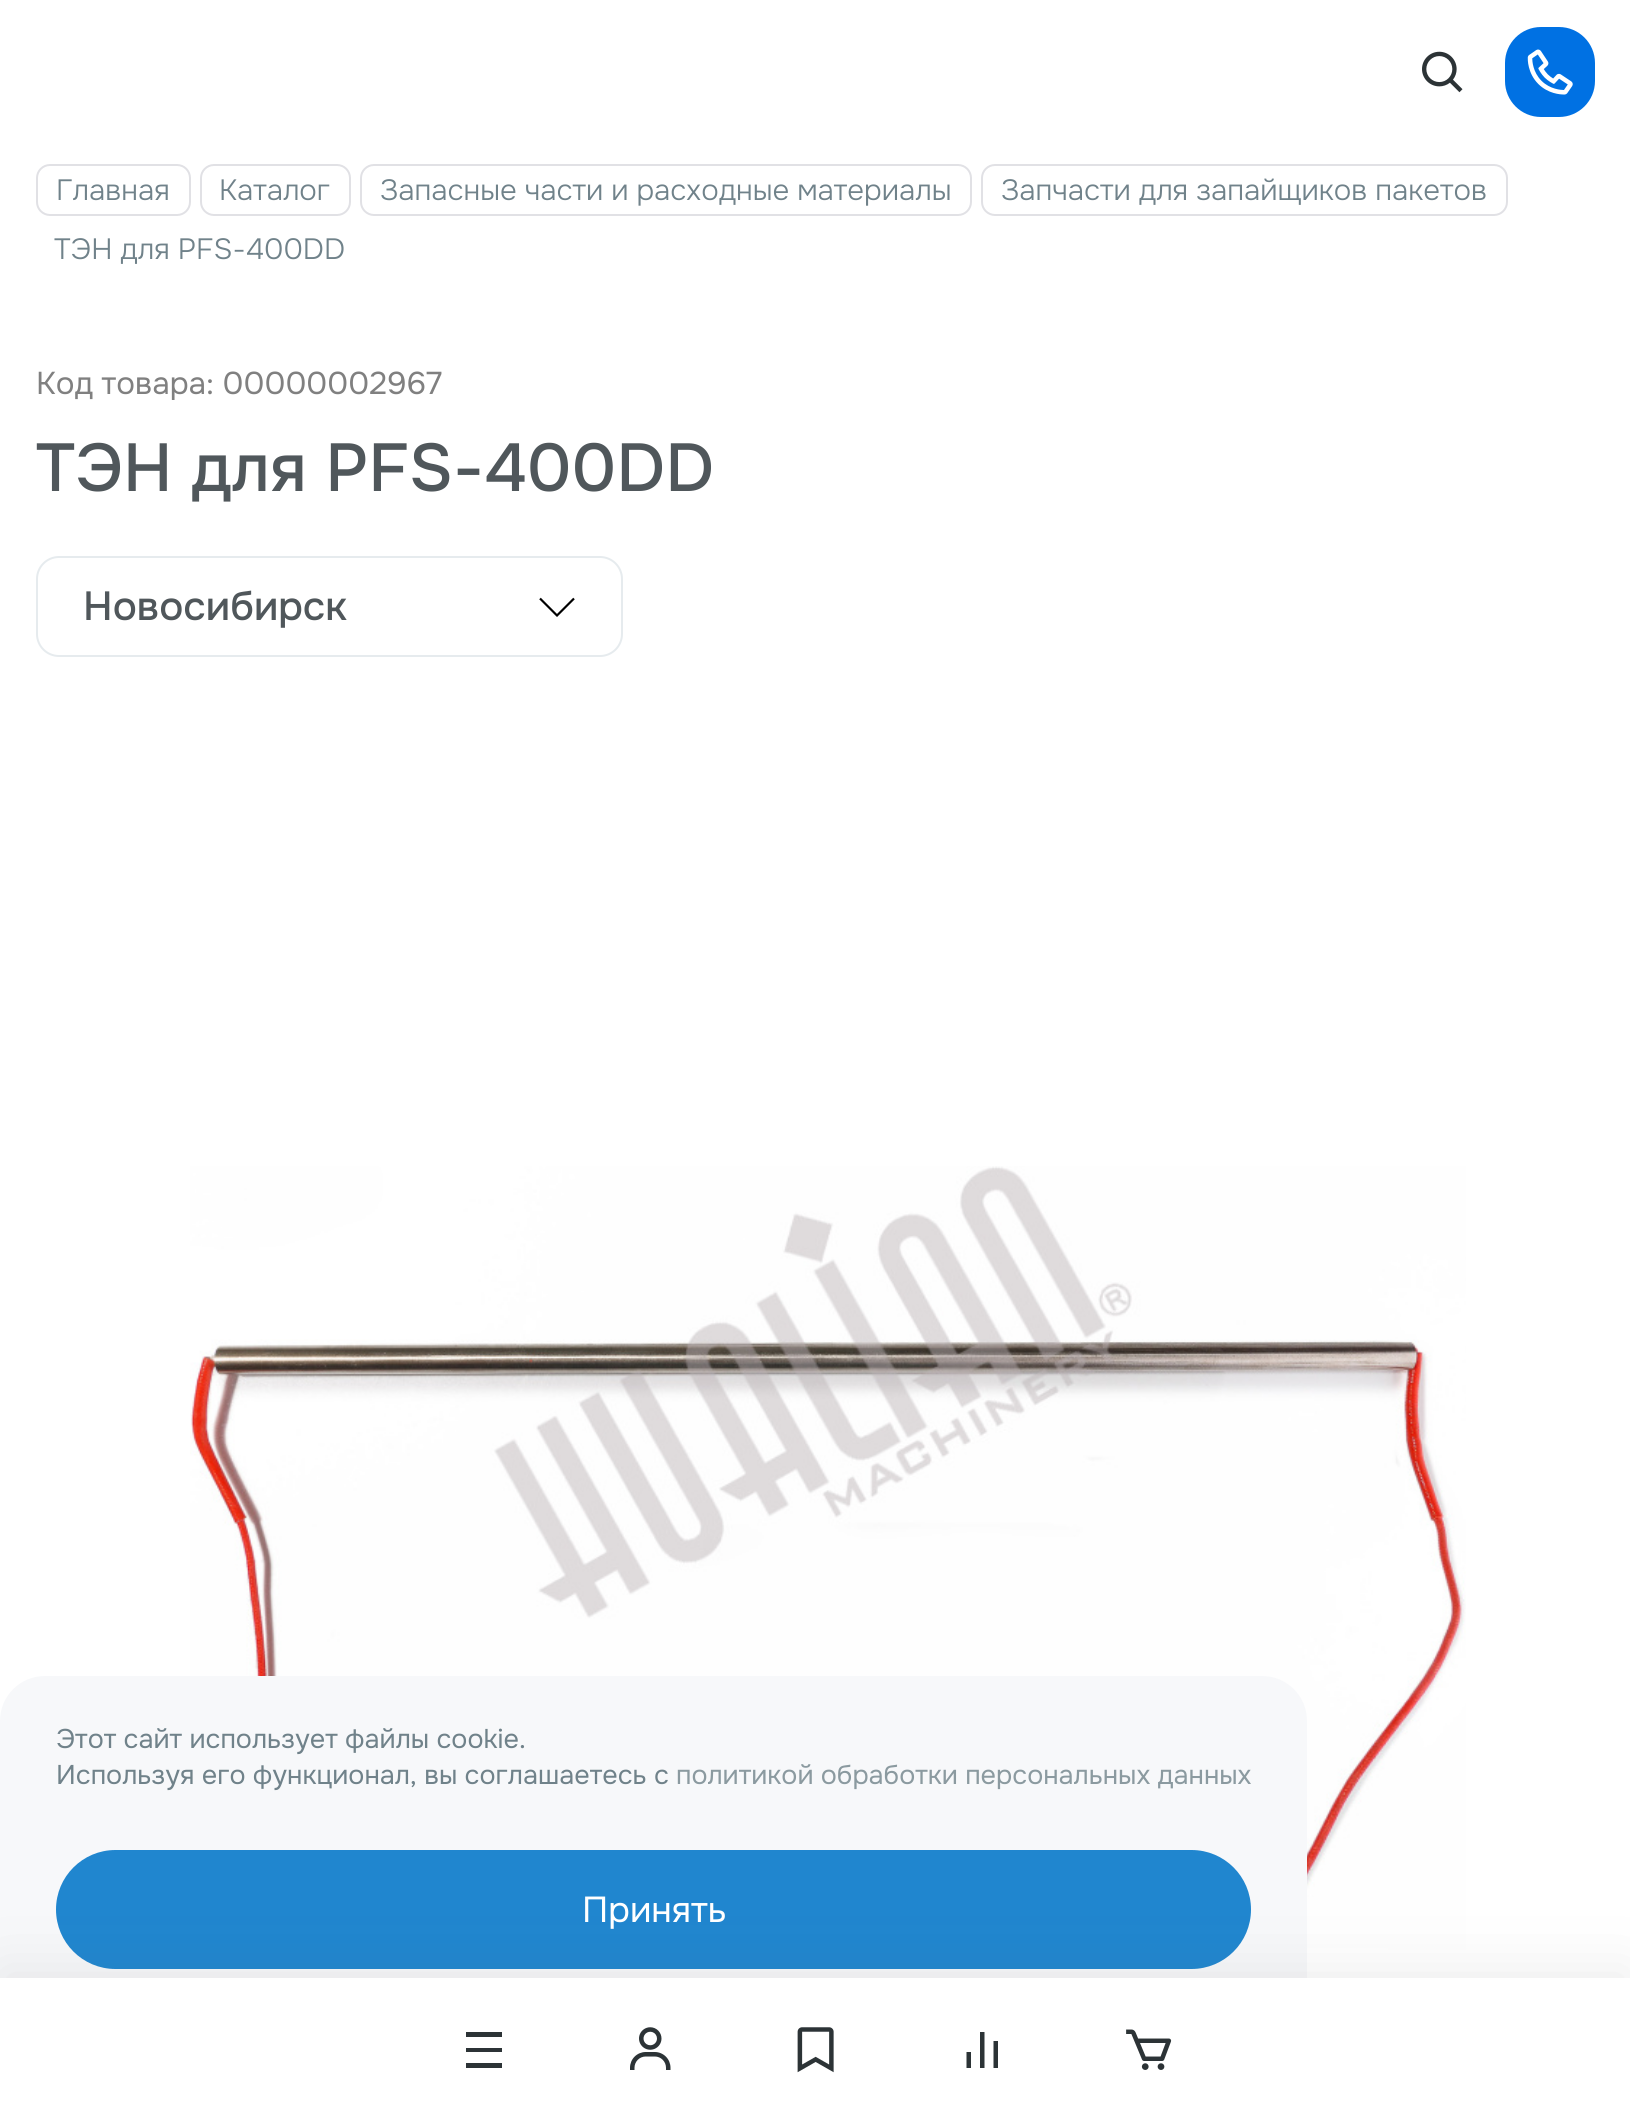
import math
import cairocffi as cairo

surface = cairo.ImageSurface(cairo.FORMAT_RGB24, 1630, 2120)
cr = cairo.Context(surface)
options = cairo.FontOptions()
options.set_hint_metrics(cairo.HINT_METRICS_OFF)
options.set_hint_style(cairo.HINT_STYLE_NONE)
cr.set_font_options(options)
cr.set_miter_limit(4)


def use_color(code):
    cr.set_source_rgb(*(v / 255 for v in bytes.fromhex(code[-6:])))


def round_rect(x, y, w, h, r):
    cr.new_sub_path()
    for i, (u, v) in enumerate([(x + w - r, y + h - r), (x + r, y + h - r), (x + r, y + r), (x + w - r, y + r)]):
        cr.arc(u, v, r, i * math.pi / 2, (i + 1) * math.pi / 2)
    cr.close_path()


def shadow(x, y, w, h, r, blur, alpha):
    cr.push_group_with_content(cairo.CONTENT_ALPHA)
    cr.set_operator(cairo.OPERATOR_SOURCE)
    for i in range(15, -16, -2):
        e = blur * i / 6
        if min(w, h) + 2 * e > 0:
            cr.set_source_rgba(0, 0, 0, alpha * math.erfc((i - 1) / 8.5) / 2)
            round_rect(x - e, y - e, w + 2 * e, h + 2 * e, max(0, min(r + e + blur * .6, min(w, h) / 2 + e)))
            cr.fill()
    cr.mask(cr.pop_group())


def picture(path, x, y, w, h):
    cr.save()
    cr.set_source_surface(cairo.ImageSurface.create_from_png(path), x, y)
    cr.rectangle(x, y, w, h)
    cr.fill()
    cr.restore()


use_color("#ffffff")
cr.paint()
picture("img1.png", 1422, 51, 41, 42)
picture("img2.png", 1505, 27, 90, 90)
picture("img6.png", 190, 1166, 1276, 789)
use_color("#f7f8fa")
cr.new_path()
cr.move_to(45, 1676)
cr.line_to(1262, 1676)
cr.curve_to(1287, 1676, 1307, 1696, 1307, 1721)
cr.line_to(1307, 2014)
cr.line_to(0, 2014)
cr.line_to(0, 1721)
cr.curve_to(0, 1696, 20, 1676, 45, 1676)
cr.close_path()
cr.fill()
use_color("#2086cf")
round_rect(56, 1850, 1195, 119, 59.5)
cr.fill()
use_color("#575757")
shadow(0, 1967, 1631, 144, 0, 28, 0.1)
use_color("#ffffff")
cr.rectangle(0, 1978, 1630, 142)
cr.fill()
use_color("#2c3336")
cr.rectangle(466, 2032, 36, 5)
cr.fill()
cr.rectangle(466, 2048, 36, 4)
cr.fill()
cr.rectangle(466, 2063, 36, 5)
cr.fill()
picture("img3.png", 630, 2027, 41, 43)
picture("img4.png", 797, 2027, 37, 46)
cr.new_path()
cr.move_to(984.5, 2032)
cr.line_to(984.5, 2068)
cr.line_to(980, 2068)
cr.line_to(980, 2032)
cr.close_path()
cr.move_to(998, 2041)
cr.line_to(998, 2068)
cr.line_to(993.5, 2068)
cr.line_to(993.5, 2041)
cr.close_path()
cr.move_to(971, 2052)
cr.line_to(971, 2068)
cr.line_to(966.5, 2068)
cr.line_to(966.5, 2052)
cr.close_path()
cr.fill()
picture("img5.png", 1126, 2029, 46, 41)
round_rect(37, 165, 153, 50, 13)
use_color("#e1e1e5")
cr.stroke()
cr.select_font_face("Onest Light")
cr.set_font_size(29.25)
use_color("#70828a")
cr.move_to(56, 200)
cr.show_text("Главная")
round_rect(201, 165, 149, 50, 13)
use_color("#e1e1e5")
cr.stroke()
use_color("#70828a")
cr.move_to(219, 200)
cr.show_text("Каталог")
round_rect(361, 165, 610, 50, 13)
use_color("#e1e1e5")
cr.stroke()
use_color("#70828a")
cr.move_to(380, 200)
cr.show_text("Запасные части и расходные материалы")
round_rect(982, 165, 525, 50, 13)
use_color("#e1e1e5")
cr.stroke()
use_color("#70828a")
cr.move_to(1001, 200)
cr.show_text("Запчасти для запайщиков пакетов")
cr.move_to(54, 259)
cr.show_text("ТЭН для PFS-400DD")
cr.select_font_face("Onest")
cr.set_font_size(31.5)
use_color("#808080")
cr.move_to(36, 394)
cr.show_text("Код товара: 00000002967")
cr.select_font_face("Onest Medium")
cr.set_font_size(67.5)
use_color("#50575b")
cr.move_to(36, 491)
cr.show_text("ТЭН для PFS-400DD")
round_rect(37, 557, 585, 99, 22)
use_color("#e6ebee")
cr.stroke()
cr.set_font_size(40.5)
use_color("#50575b")
cr.move_to(83, 620)
cr.show_text("Новосибирск")
cr.new_path()
cr.move_to(540, 598.5)
cr.line_to(557, 615.5)
cr.line_to(574, 598.5)
use_color("#000000")
cr.set_line_width(2.2)
cr.stroke()
cr.select_font_face("Onest")
cr.set_font_size(27)
use_color("#70828a")
cr.move_to(56, 1748)
cr.show_text("Этот сайт использует файлы cookie.")
cr.move_to(56, 1784)
cr.show_text("Используя его функционал, вы соглашаетесь с")
use_color("#8b9aa0")
cr.move_to(676, 1784)
cr.show_text("политикой обработки персональных данных")
cr.set_font_size(36)
use_color("#ffffff")
cr.move_to(582, 1922)
cr.show_text("Принять")
surface.write_to_png("result.png")
